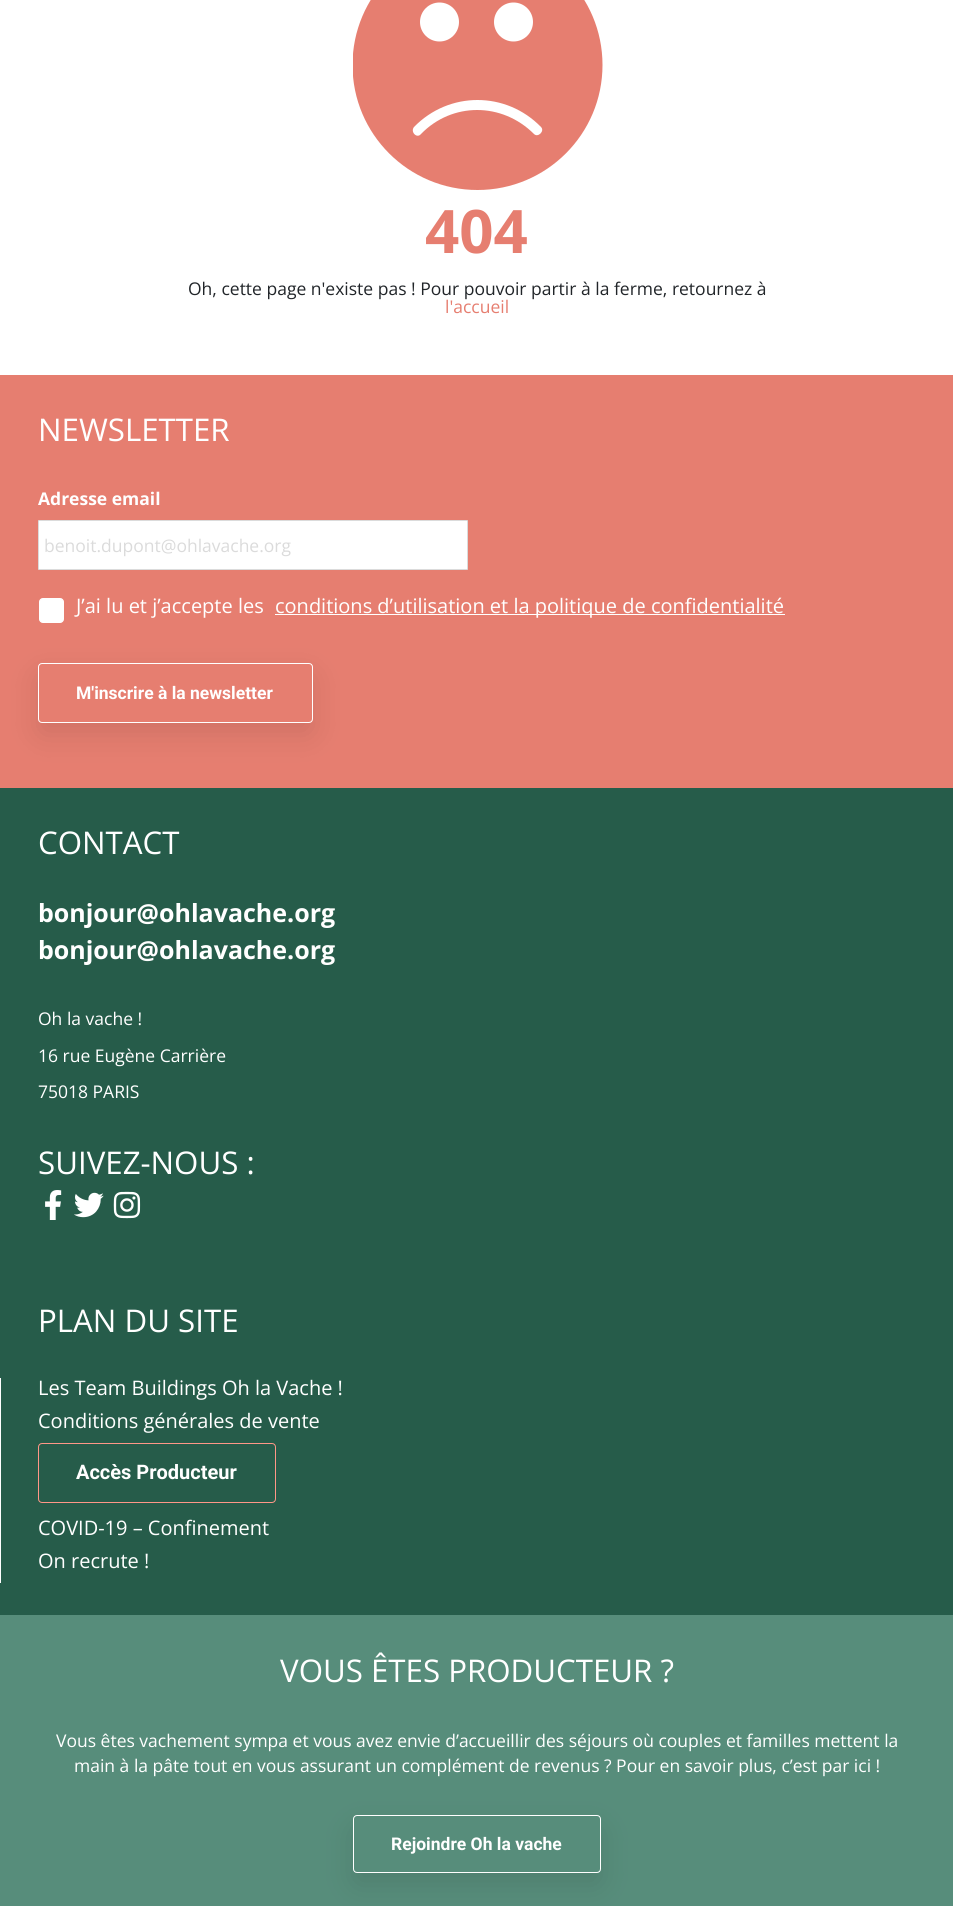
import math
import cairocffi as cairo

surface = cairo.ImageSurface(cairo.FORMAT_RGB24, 953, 1906)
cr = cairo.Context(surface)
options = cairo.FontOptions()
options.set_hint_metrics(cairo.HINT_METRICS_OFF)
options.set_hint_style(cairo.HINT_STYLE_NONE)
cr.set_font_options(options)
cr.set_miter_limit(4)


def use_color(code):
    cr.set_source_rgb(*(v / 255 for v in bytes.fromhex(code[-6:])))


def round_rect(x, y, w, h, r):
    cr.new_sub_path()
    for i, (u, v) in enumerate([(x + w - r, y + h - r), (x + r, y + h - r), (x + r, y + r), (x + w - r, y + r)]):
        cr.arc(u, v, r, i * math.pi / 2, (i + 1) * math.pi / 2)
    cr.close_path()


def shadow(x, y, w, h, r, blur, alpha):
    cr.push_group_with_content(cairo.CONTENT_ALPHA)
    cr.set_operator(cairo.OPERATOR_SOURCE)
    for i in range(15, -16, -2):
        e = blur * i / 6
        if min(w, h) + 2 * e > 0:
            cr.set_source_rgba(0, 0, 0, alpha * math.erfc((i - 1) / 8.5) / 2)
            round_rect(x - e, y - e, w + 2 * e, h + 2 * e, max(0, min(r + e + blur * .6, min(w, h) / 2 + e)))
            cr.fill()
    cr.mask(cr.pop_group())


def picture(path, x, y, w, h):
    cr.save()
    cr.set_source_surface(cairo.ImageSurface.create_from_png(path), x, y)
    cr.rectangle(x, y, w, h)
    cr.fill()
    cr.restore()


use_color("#ffffff")
cr.paint()
cr.save()
cr.rectangle(353, 0, 250, 190)
cr.clip()
use_color("#e67e70")
cr.arc(477.5, 65, 125, 0, 2 * math.pi)
cr.fill()
cr.restore()
use_color("#ffffff")
cr.new_path()
cr.move_to(541, 127)
cr.curve_to(506, 91, 449, 91, 414, 127)
cr.curve_to(410, 132, 417, 139, 421, 134)
cr.curve_to(452, 102, 502, 102, 534, 134)
cr.curve_to(538, 138, 545, 131, 541, 127)
cr.close_path()
cr.fill()
cr.arc(439.5, 22, 19.5, 0, 2 * math.pi)
cr.fill()
cr.arc(513.5, 22, 19.5, 0, 2 * math.pi)
cr.fill()
cr.select_font_face("Open Sans", cairo.FONT_SLANT_NORMAL, cairo.FONT_WEIGHT_BOLD)
cr.set_font_size(60)
use_color("#e67e70")
cr.move_to(425, 253)
cr.show_text("404")
cr.select_font_face("Open Sans")
cr.set_font_size(17.5)
use_color("#212529")
cr.move_to(188, 295)
cr.show_text("Oh, cette page n'existe pas ! Pour pouvoir partir à la ferme, retournez à")
use_color("#e67e70")
cr.move_to(445, 313)
cr.show_text("l'accueil")
use_color("#265c4a")
cr.rectangle(0, 788, 953, 827)
cr.fill()
use_color("#e67e70")
cr.rectangle(0, 375, 953, 413)
cr.fill()
cr.set_font_size(31.25)
use_color("#ffffff")
cr.move_to(38, 441)
cr.show_text("NEWSLETTER")
cr.select_font_face("Open Sans", cairo.FONT_SLANT_NORMAL, cairo.FONT_WEIGHT_BOLD)
cr.set_font_size(17.5)
cr.move_to(38, 505)
cr.show_text("Adresse email")
round_rect(38.5, 520.5, 429, 49, 0.5)
cr.fill_preserve()
use_color("#dbdbdb")
cr.set_line_width(1)
cr.stroke()
cr.select_font_face("Open Sans")
cr.move_to(44, 552)
cr.show_text("benoit.dupont@ohlavache.org")
use_color("#ffffff")
round_rect(39.5, 598.5, 24, 24, 3.5)
cr.fill_preserve()
cr.stroke()
cr.set_font_size(20)
cr.move_to(76, 613)
cr.show_text("J’ai lu et j’accepte les")
cr.rectangle(275, 614, 510, 1)
cr.fill()
cr.move_to(275, 613)
cr.show_text("conditions d’utilisation et la politique de confidentialité")
cr.save()
cr.set_fill_rule(cairo.FILL_RULE_EVEN_ODD)
cr.new_path()
cr.move_to(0, 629)
cr.line_to(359, 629)
cr.line_to(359, 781)
cr.line_to(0, 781)
cr.close_path()
cr.move_to(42, 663)
cr.line_to(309, 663)
cr.curve_to(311, 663, 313, 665, 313, 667)
cr.line_to(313, 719)
cr.curve_to(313, 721, 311, 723, 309, 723)
cr.line_to(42, 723)
cr.curve_to(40, 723, 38, 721, 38, 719)
cr.line_to(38, 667)
cr.curve_to(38, 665, 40, 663, 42, 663)
cr.close_path()
cr.clip()
use_color("#000000")
shadow(38, 675, 275, 60, 4, 15, 0.1)
cr.restore()
round_rect(38.5, 663.5, 274, 59, 3.5)
cr.stroke()
cr.select_font_face("Roboto", cairo.FONT_SLANT_NORMAL, cairo.FONT_WEIGHT_BOLD)
cr.set_font_size(17.5)
cr.move_to(76, 699)
cr.show_text("M'inscrire à la newsletter")
cr.select_font_face("Open Sans")
cr.set_font_size(31.25)
cr.move_to(38, 854)
cr.show_text("CONTACT")
cr.select_font_face("Open Sans", cairo.FONT_SLANT_NORMAL, cairo.FONT_WEIGHT_BOLD)
cr.set_font_size(25)
cr.move_to(38, 922)
cr.show_text("bonjour@ohlavache.org")
cr.move_to(38, 959)
cr.show_text("bonjour@ohlavache.org")
cr.select_font_face("Open Sans")
cr.set_font_size(17.5)
cr.move_to(38, 1025)
cr.show_text("Oh la vache !")
cr.move_to(38, 1062)
cr.show_text("16 rue Eugène Carrière")
cr.move_to(38, 1098)
cr.show_text("75018 PARIS")
cr.set_font_size(31.25)
cr.move_to(38, 1174)
cr.show_text("SUIVEZ-NOUS :")
picture("img1.png", 45, 1190, 17, 30)
picture("img2.png", 74, 1192, 30, 26)
picture("img3.png", 113, 1191, 28, 28)
cr.move_to(38, 1332)
cr.show_text("PLAN DU SITE")
cr.rectangle(0, 1378, 1, 205)
cr.fill()
cr.set_font_size(20)
cr.move_to(38, 1395)
cr.show_text("Les Team Buildings Oh la Vache !")
cr.move_to(38, 1428)
cr.show_text("Conditions générales de vente")
round_rect(38.5, 1443.5, 237, 59, 3.5)
use_color("#ff9788")
cr.stroke()
cr.select_font_face("Roboto", cairo.FONT_SLANT_NORMAL, cairo.FONT_WEIGHT_BOLD)
use_color("#ffffff")
cr.move_to(76, 1479)
cr.show_text("Accès Producteur")
cr.select_font_face("Open Sans")
cr.move_to(38, 1535)
cr.show_text("COVID-19 – Confinement")
cr.move_to(38, 1568)
cr.show_text("On recrute !")
use_color("#578d7b")
cr.rectangle(0, 1615, 953, 291)
cr.fill()
cr.set_font_size(31.25)
use_color("#ffffff")
cr.move_to(280, 1682)
cr.show_text("VOUS ÊTES PRODUCTEUR ?")
cr.set_font_size(17.5)
cr.move_to(56, 1747)
cr.show_text("Vous êtes vachement sympa et vous avez envie d’accueillir des séjours où couples et familles mettent la")
cr.move_to(74, 1772)
cr.show_text("main à la pâte tout en vous assurant un complément de revenus ? Pour en savoir plus, c’est par ici !")
cr.save()
cr.set_fill_rule(cairo.FILL_RULE_EVEN_ODD)
cr.new_path()
cr.move_to(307, 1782)
cr.line_to(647, 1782)
cr.line_to(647, 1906)
cr.line_to(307, 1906)
cr.close_path()
cr.move_to(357, 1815)
cr.line_to(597, 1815)
cr.curve_to(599, 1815, 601, 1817, 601, 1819)
cr.line_to(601, 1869)
cr.curve_to(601, 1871, 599, 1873, 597, 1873)
cr.line_to(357, 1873)
cr.curve_to(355, 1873, 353, 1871, 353, 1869)
cr.line_to(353, 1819)
cr.curve_to(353, 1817, 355, 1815, 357, 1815)
cr.close_path()
cr.clip()
use_color("#000000")
shadow(353, 1828, 248, 57, 4, 15, 0.1)
cr.restore()
round_rect(353.5, 1815.5, 247, 57, 3.5)
cr.stroke()
cr.select_font_face("Roboto", cairo.FONT_SLANT_NORMAL, cairo.FONT_WEIGHT_BOLD)
cr.move_to(391, 1850)
cr.show_text("Rejoindre Oh la vache")
surface.write_to_png("result.png")
